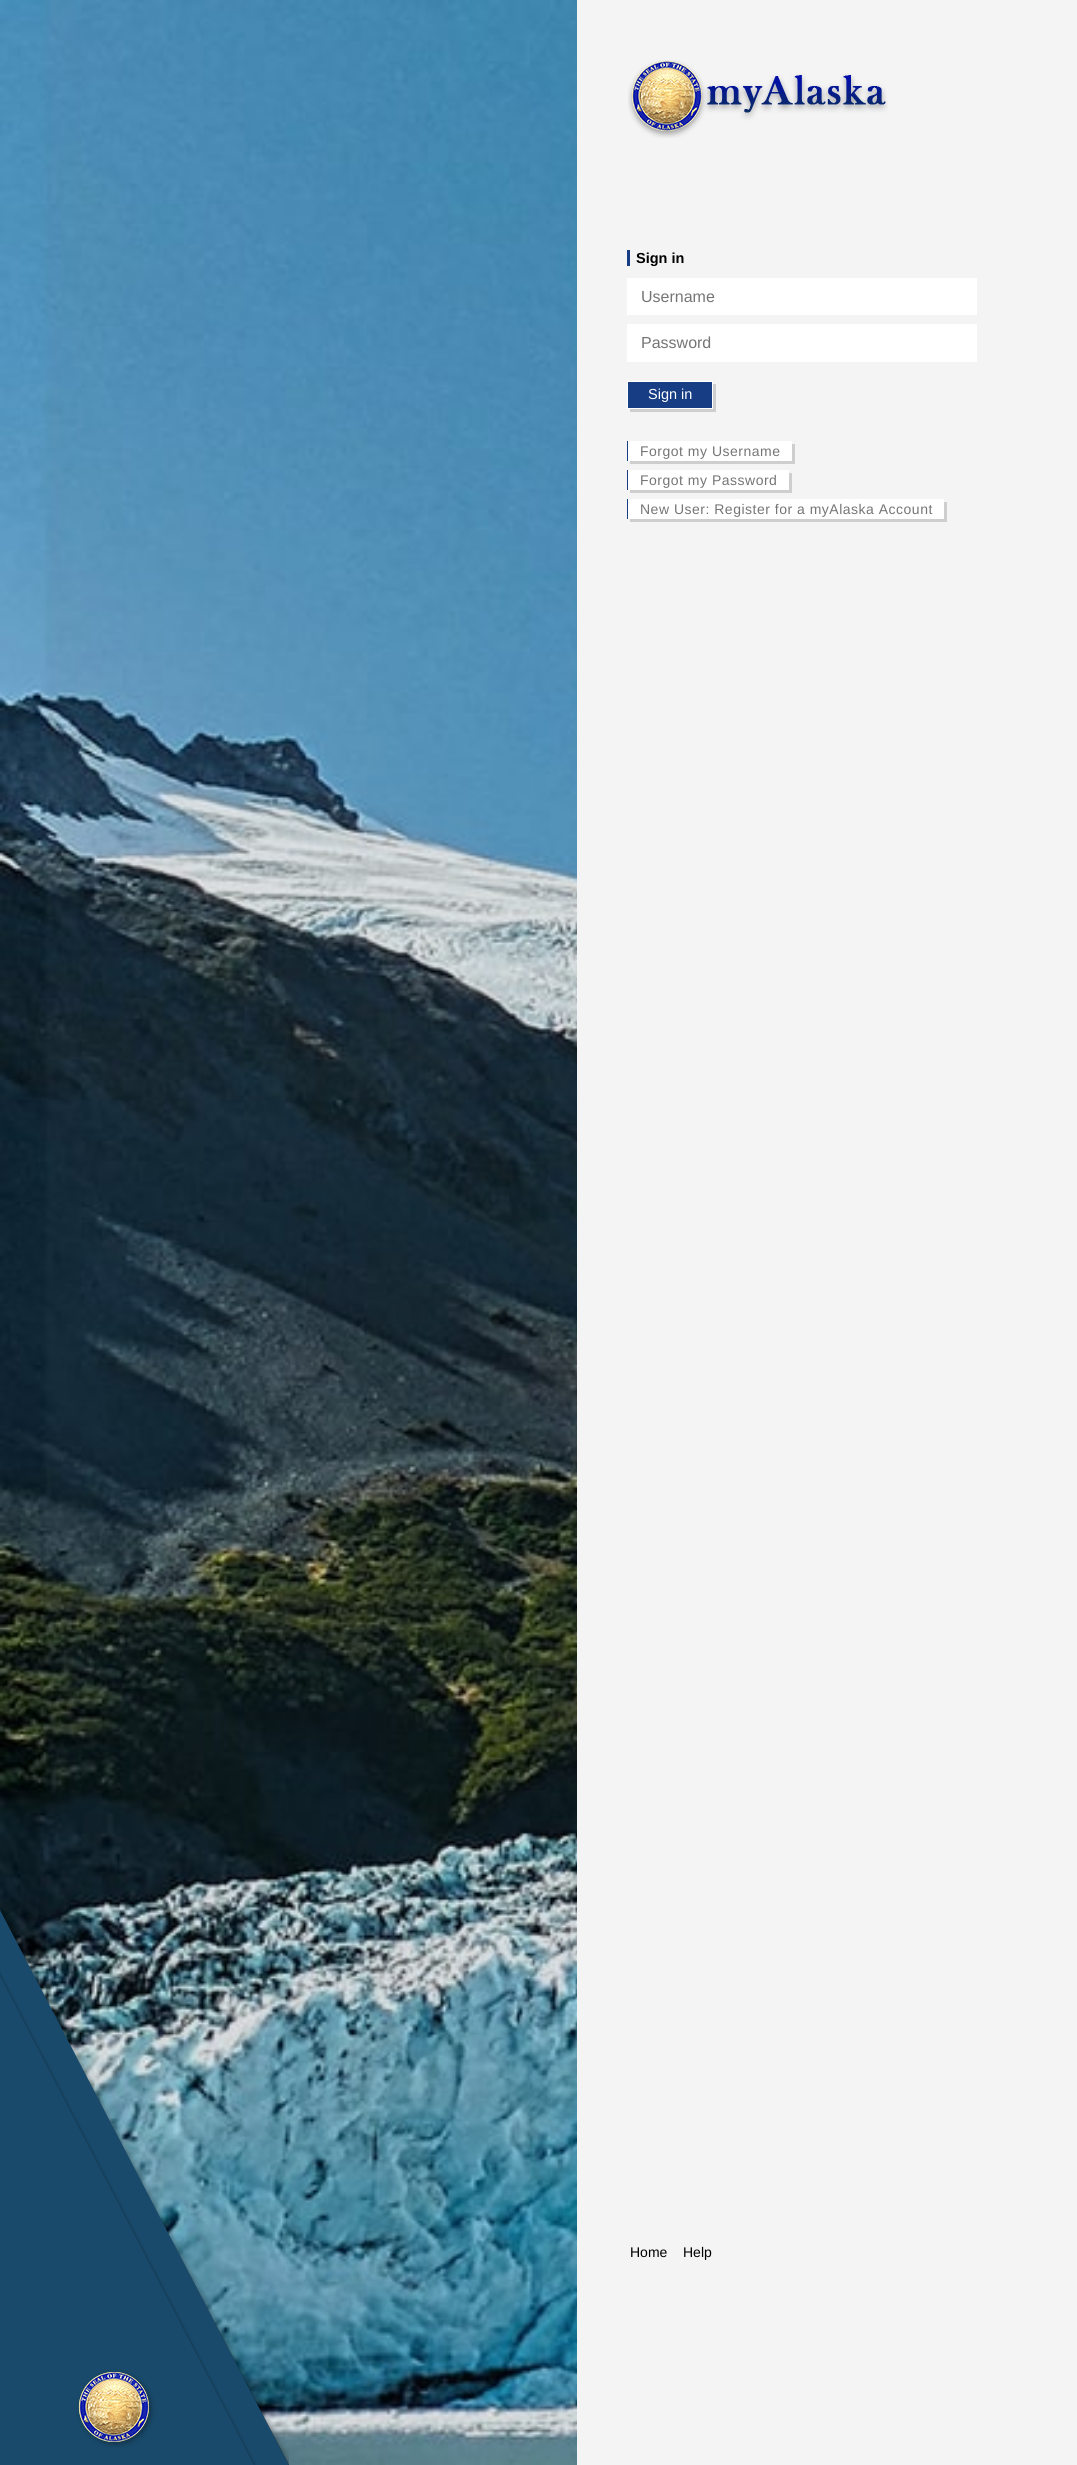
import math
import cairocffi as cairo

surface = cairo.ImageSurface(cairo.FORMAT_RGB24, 1077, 2465)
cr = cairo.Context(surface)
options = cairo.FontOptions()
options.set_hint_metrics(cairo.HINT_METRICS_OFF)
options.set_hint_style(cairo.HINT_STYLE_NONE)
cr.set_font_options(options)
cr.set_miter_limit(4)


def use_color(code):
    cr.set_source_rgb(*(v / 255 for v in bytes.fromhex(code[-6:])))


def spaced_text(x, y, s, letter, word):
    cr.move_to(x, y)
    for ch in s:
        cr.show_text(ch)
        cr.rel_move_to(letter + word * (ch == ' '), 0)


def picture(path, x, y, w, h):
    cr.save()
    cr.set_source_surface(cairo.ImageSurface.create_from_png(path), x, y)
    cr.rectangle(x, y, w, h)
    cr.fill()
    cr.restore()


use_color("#ffffff")
cr.paint()
picture("img1.png", 0, 0, 577, 2465)
picture("img2.png", 0, 1909, 289, 556)
use_color("#f4f4f4")
cr.rectangle(577, 0, 500, 2465)
cr.fill()
picture("img3.png", 628, 60, 260, 78)
use_color("#173d84")
cr.rectangle(627, 250, 3, 16)
cr.fill()
cr.select_font_face("Liberation Sans", cairo.FONT_SLANT_NORMAL, cairo.FONT_WEIGHT_BOLD)
cr.set_font_size(14.5)
use_color("#000000")
cr.move_to(636, 263)
cr.show_text("Sign in")
use_color("#ffffff")
cr.rectangle(627, 278, 350, 37)
cr.fill()
cr.select_font_face("Liberation Sans")
cr.set_font_size(16)
use_color("#757575")
cr.move_to(641, 302)
cr.show_text("Username")
use_color("#ffffff")
cr.rectangle(627, 324, 350, 38)
cr.fill()
use_color("#757575")
cr.move_to(641, 348)
cr.show_text("Password")
use_color("#cecece")
cr.new_path()
cr.move_to(630, 409)
cr.line_to(630, 412)
cr.line_to(716, 412)
cr.line_to(716, 384)
cr.line_to(713, 384)
cr.line_to(713, 409)
cr.close_path()
cr.fill()
use_color("#173d84")
cr.rectangle(627.5, 381.5, 85, 27)
cr.fill_preserve()
use_color("#ffffff")
cr.set_line_width(1)
cr.stroke()
cr.set_font_size(14.5)
cr.move_to(648, 399)
cr.show_text("Sign in")
use_color("#cecece")
cr.new_path()
cr.move_to(630, 461)
cr.line_to(630, 464)
cr.line_to(795, 464)
cr.line_to(795, 444)
cr.line_to(792, 444)
cr.line_to(792, 461)
cr.close_path()
cr.fill()
use_color("#ffffff")
cr.rectangle(628, 441, 164, 20)
cr.fill()
use_color("#173d84")
cr.rectangle(627, 441, 1, 20)
cr.fill()
cr.set_font_size(14)
use_color("#757575")
spaced_text(640, 456, "Forgot my Username", 0.5, 0)
use_color("#cecece")
cr.new_path()
cr.move_to(630, 490)
cr.line_to(630, 493)
cr.line_to(792, 493)
cr.line_to(792, 473)
cr.line_to(789, 473)
cr.line_to(789, 490)
cr.close_path()
cr.fill()
use_color("#ffffff")
cr.rectangle(628, 470, 161, 20)
cr.fill()
use_color("#173d84")
cr.rectangle(627, 470, 1, 20)
cr.fill()
use_color("#757575")
spaced_text(640, 485, "Forgot my Password", 0.5, 0)
use_color("#cecece")
cr.new_path()
cr.move_to(630, 519)
cr.line_to(630, 522)
cr.line_to(947, 522)
cr.line_to(947, 502)
cr.line_to(944, 502)
cr.line_to(944, 519)
cr.close_path()
cr.fill()
use_color("#ffffff")
cr.rectangle(628, 499, 316, 20)
cr.fill()
use_color("#173d84")
cr.rectangle(627, 499, 1, 20)
cr.fill()
use_color("#757575")
spaced_text(640, 514, "New User: Register for a myAlaska Account", 0.5, 0)
use_color("#000000")
cr.move_to(630, 2257)
cr.show_text("Home")
cr.move_to(683, 2257)
cr.show_text("Help")
surface.write_to_png("result.png")
